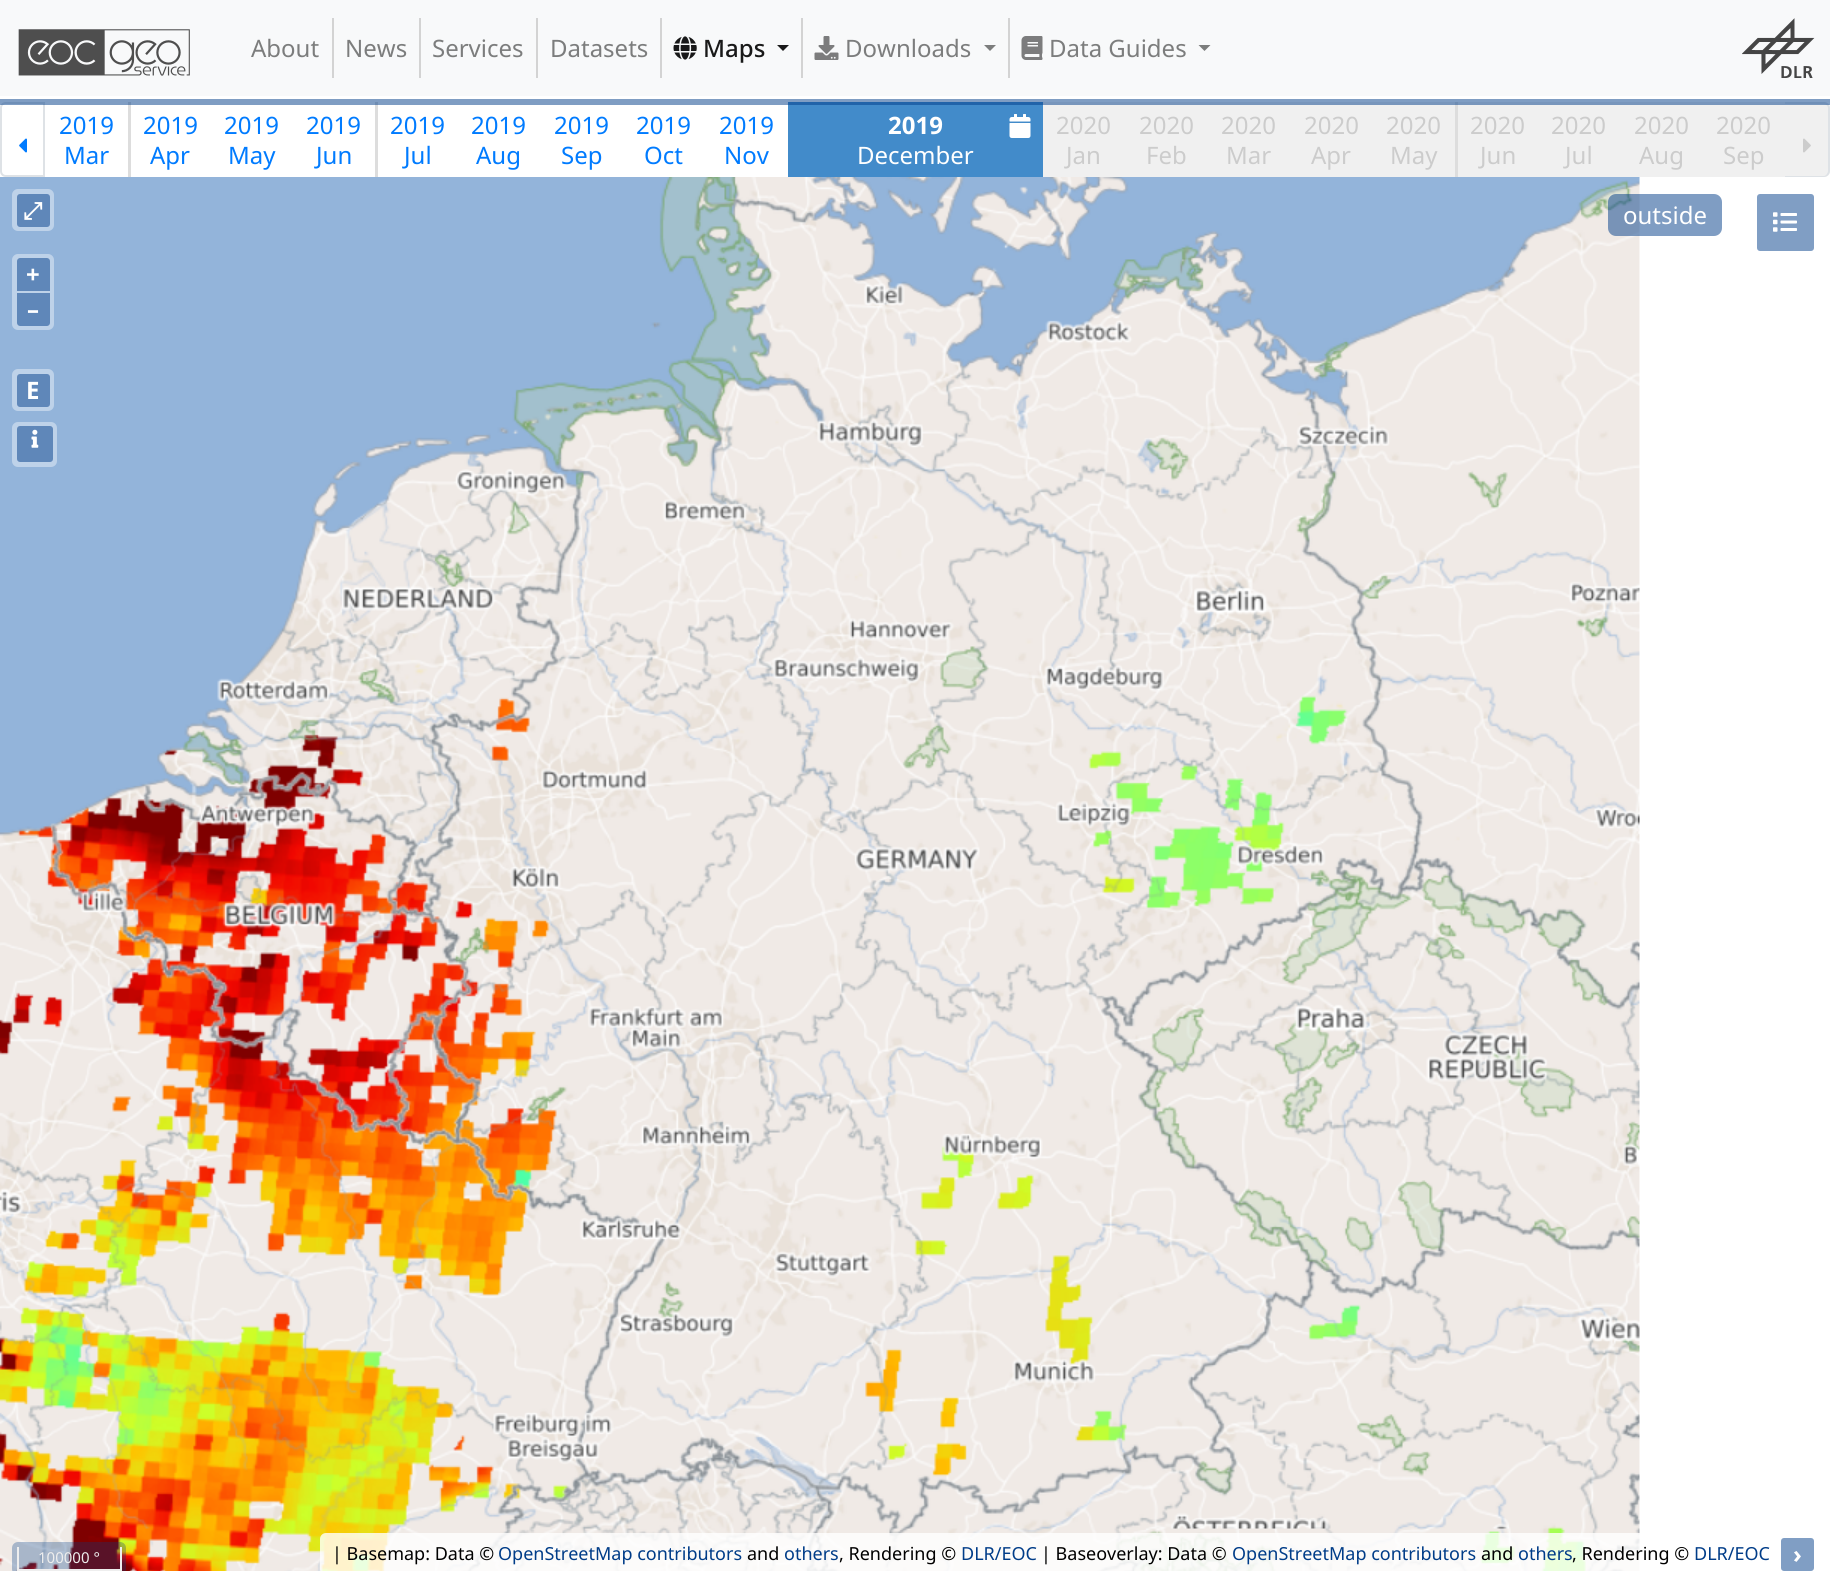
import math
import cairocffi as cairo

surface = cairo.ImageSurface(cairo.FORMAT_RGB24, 1830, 1571)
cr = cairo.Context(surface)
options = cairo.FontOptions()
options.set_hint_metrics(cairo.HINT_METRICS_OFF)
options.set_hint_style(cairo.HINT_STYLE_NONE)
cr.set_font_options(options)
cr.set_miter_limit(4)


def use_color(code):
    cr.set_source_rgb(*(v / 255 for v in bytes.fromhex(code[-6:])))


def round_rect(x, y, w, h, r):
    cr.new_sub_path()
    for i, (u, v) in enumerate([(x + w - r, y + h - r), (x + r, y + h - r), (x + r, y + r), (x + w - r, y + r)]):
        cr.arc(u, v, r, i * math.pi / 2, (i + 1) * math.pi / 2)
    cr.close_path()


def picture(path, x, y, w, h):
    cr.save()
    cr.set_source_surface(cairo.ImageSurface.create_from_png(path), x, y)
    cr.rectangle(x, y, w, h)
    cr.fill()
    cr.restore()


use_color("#ffffff")
cr.paint()
use_color("#f8f9fa")
cr.rectangle(0, 0, 1830, 96)
cr.fill()
picture("img1.png", 18, 29, 172, 47)
use_color("#d3d3d3")
cr.rectangle(332, 18, 2, 60)
cr.fill()
cr.select_font_face("Noto Sans")
cr.set_font_size(24)
use_color("#7c7d7d")
cr.move_to(251, 57)
cr.show_text("About")
use_color("#d3d3d3")
cr.rectangle(419, 18, 2, 60)
cr.fill()
use_color("#7c7d7d")
cr.move_to(345, 57)
cr.show_text("News")
use_color("#d3d3d3")
cr.rectangle(536, 18, 2, 60)
cr.fill()
use_color("#7c7d7d")
cr.move_to(432, 57)
cr.show_text("Services")
use_color("#d3d3d3")
cr.rectangle(660, 18, 2, 60)
cr.fill()
use_color("#7c7d7d")
cr.move_to(550, 57)
cr.show_text("Datasets")
use_color("#d3d3d3")
cr.rectangle(801, 18, 2, 60)
cr.fill()
picture("img2.png", 673, 36, 24, 24)
cr.select_font_face("Noto Sans Medium")
use_color("#191919")
cr.move_to(703, 57)
cr.show_text("Maps")
cr.new_path()
cr.move_to(777, 45)
cr.line_to(789, 45)
cr.line_to(783, 51)
cr.close_path()
cr.fill()
use_color("#d3d3d3")
cr.rectangle(1008, 18, 2, 60)
cr.fill()
picture("img3.png", 814, 36, 25, 24)
cr.select_font_face("Noto Sans")
use_color("#7c7d7d")
cr.move_to(845, 57)
cr.show_text("Downloads")
cr.new_path()
cr.move_to(984, 45)
cr.line_to(996, 45)
cr.line_to(990, 51)
cr.close_path()
cr.fill()
picture("img4.png", 1021, 36, 22, 24)
cr.move_to(1049, 57)
cr.show_text("Data Guides")
cr.new_path()
cr.move_to(1198.5, 45)
cr.line_to(1210.5, 45)
cr.line_to(1204.5, 51)
cr.close_path()
cr.fill()
picture("img5.png", 1742, 18, 73, 60)
cr.new_path()
cr.move_to(6, 103)
cr.line_to(44, 103)
cr.line_to(44, 176)
cr.line_to(6, 176)
cr.curve_to(3, 176, 1, 174, 1, 171)
cr.line_to(1, 108)
cr.curve_to(1, 105, 3, 103, 6, 103)
cr.close_path()
use_color("#dee2e6")
cr.stroke()
use_color("#dddddd")
cr.rectangle(128, 102, 3, 75)
cr.fill()
cr.rectangle(375, 102, 3, 75)
cr.fill()
use_color("#428bca")
cr.rectangle(788, 102, 255, 75)
cr.fill()
use_color("#f0f0f0")
cr.rectangle(1043, 102, 412, 75)
cr.fill()
cr.rectangle(1458, 102, 327, 75)
cr.fill()
use_color("#dddddd")
cr.rectangle(1455, 102, 3, 75)
cr.fill()
use_color("#f0f0f0")
cr.new_path()
cr.move_to(1785, 102)
cr.line_to(1824, 102)
cr.curve_to(1827.5, 102, 1830, 104.5, 1830, 108)
cr.line_to(1830, 171)
cr.curve_to(1830, 174.5, 1827.5, 177, 1824, 177)
cr.line_to(1785, 177)
cr.close_path()
cr.fill()
use_color("#dee2e6")
cr.set_fill_rule(cairo.FILL_RULE_EVEN_ODD)
cr.new_path()
cr.move_to(1785, 102)
cr.line_to(1824, 102)
cr.curve_to(1827, 102, 1830, 105, 1830, 108)
cr.line_to(1830, 171)
cr.curve_to(1830, 174, 1827, 177, 1824, 177)
cr.line_to(1785, 177)
cr.close_path()
cr.move_to(1785, 104)
cr.line_to(1824, 104)
cr.curve_to(1826, 104, 1828, 106, 1828, 108)
cr.line_to(1828, 171)
cr.curve_to(1828, 173, 1826, 176, 1824, 176)
cr.line_to(1785, 176)
cr.close_path()
cr.fill()
cr.set_source_rgba(0, 0.235, 0.533, 0.5)
cr.rectangle(0, 99, 1830, 6)
cr.fill()
picture("img6.png", 19, 138, 8, 15)
use_color("#007bff")
cr.move_to(59, 134)
cr.show_text("2019")
cr.move_to(64, 164)
cr.show_text("Mar")
cr.move_to(143, 134)
cr.show_text("2019")
cr.move_to(150, 164)
cr.show_text("Apr")
cr.move_to(224, 134)
cr.show_text("2019")
cr.move_to(228, 164)
cr.show_text("May")
cr.move_to(306, 134)
cr.show_text("2019")
cr.move_to(316, 164)
cr.show_text("Jun")
cr.move_to(390, 134)
cr.show_text("2019")
cr.move_to(404, 164)
cr.show_text("Jul")
cr.move_to(471, 134)
cr.show_text("2019")
cr.move_to(476, 164)
cr.show_text("Aug")
cr.move_to(554, 134)
cr.show_text("2019")
cr.move_to(561, 164)
cr.show_text("Sep")
cr.move_to(636, 134)
cr.show_text("2019")
cr.move_to(644, 164)
cr.show_text("Oct")
cr.move_to(719, 134)
cr.show_text("2019")
cr.move_to(724, 164)
cr.show_text("Nov")
cr.select_font_face("Noto Sans", cairo.FONT_SLANT_NORMAL, cairo.FONT_WEIGHT_BOLD)
use_color("#ffffff")
cr.move_to(888, 134)
cr.show_text("2019")
picture("img7.png", 1009, 114, 22, 24)
cr.select_font_face("Noto Sans")
cr.move_to(857, 164)
cr.show_text("December")
use_color("#cccccc")
cr.move_to(1056, 134)
cr.show_text("2020")
cr.move_to(1066, 164)
cr.show_text("Jan")
cr.move_to(1139, 134)
cr.show_text("2020")
cr.move_to(1146, 164)
cr.show_text("Feb")
cr.move_to(1221, 134)
cr.show_text("2020")
cr.move_to(1226, 164)
cr.show_text("Mar")
cr.move_to(1304, 134)
cr.show_text("2020")
cr.move_to(1311, 164)
cr.show_text("Apr")
cr.move_to(1386, 134)
cr.show_text("2020")
cr.move_to(1390, 164)
cr.show_text("May")
cr.move_to(1470, 134)
cr.show_text("2020")
cr.move_to(1480, 164)
cr.show_text("Jun")
cr.move_to(1551, 134)
cr.show_text("2020")
cr.move_to(1565, 164)
cr.show_text("Jul")
cr.move_to(1634, 134)
cr.show_text("2020")
cr.move_to(1639, 164)
cr.show_text("Aug")
cr.move_to(1716, 134)
cr.show_text("2020")
cr.move_to(1723, 164)
cr.show_text("Sep")
picture("img8.png", 1803, 138, 8, 15)
picture("img9.png", 0, 177, 1640, 1394)
use_color("#bed2e9")
round_rect(12, 189, 42, 42, 6)
cr.fill()
use_color("#5f87b9")
round_rect(17, 194, 33, 33, 3)
cr.fill()
cr.select_font_face("FreeSerif", cairo.FONT_SLANT_NORMAL, cairo.FONT_WEIGHT_BOLD)
use_color("#ffffff")
cr.move_to(23, 219)
cr.show_text("⤢")
cr.set_source_rgba(0, 0.235, 0.533, 0.5)
round_rect(1608, 194, 114, 42, 8)
cr.fill()
cr.select_font_face("Noto Sans")
use_color("#ffffff")
cr.move_to(1623, 224)
cr.show_text("outside")
use_color("#809ec4")
round_rect(1757, 194, 57, 57, 3)
cr.fill()
picture("img10.png", 1773, 212, 24, 20)
use_color("#bed2e9")
round_rect(12, 254, 42, 76, 6)
cr.fill()
use_color("#5f87b9")
cr.new_path()
cr.move_to(20, 258)
cr.line_to(47, 258)
cr.curve_to(48.5, 258, 50, 259.5, 50, 261)
cr.line_to(50, 291)
cr.line_to(17, 291)
cr.line_to(17, 261)
cr.curve_to(17, 259.5, 18.5, 258, 20, 258)
cr.close_path()
cr.fill()
cr.select_font_face("Noto Sans", cairo.FONT_SLANT_NORMAL, cairo.FONT_WEIGHT_BOLD)
use_color("#ffffff")
cr.move_to(26, 283)
cr.show_text("+")
use_color("#5f87b9")
cr.new_path()
cr.move_to(17, 293)
cr.line_to(50, 293)
cr.line_to(50, 323)
cr.curve_to(50, 324.5, 48.5, 326, 47, 326)
cr.line_to(20, 326)
cr.curve_to(18.5, 326, 17, 324.5, 17, 323)
cr.close_path()
cr.fill()
use_color("#ffffff")
cr.move_to(27, 318)
cr.show_text("–")
use_color("#bed2e9")
round_rect(12, 369, 42, 42, 6)
cr.fill()
use_color("#5f87b9")
round_rect(17, 374, 33, 33, 3)
cr.fill()
use_color("#ffffff")
cr.move_to(26, 399)
cr.show_text("E")
use_color("#bed2e9")
round_rect(12, 422, 45, 45, 6)
cr.fill()
use_color("#5f87b9")
round_rect(17, 426, 36, 36, 3)
cr.fill()
picture("img11.png", 31, 429, 8, 19)
cr.set_source_rgba(0, 0.235, 0.533, 0.3)
round_rect(12, 1542, 114, 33, 6)
cr.fill()
use_color("#eeeeee")
cr.rectangle(120, 1547, 2, 24)
cr.fill()
cr.rectangle(17, 1569, 105, 2)
cr.fill()
cr.rectangle(17, 1547, 2, 24)
cr.fill()
cr.select_font_face("Noto Sans")
cr.set_font_size(15)
cr.move_to(38, 1563)
cr.show_text("100000 °")
cr.set_source_rgba(1, 1, 1, 0.8)
round_rect(320, 1533, 1498, 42, 6)
cr.fill()
cr.set_font_size(18)
use_color("#000000")
cr.move_to(332, 1560)
cr.show_text("| Basemap: Data ©")
use_color("#003c88")
cr.move_to(498, 1560)
cr.show_text("OpenStreetMap contributors")
use_color("#000000")
cr.move_to(747, 1560)
cr.show_text("and")
use_color("#003c88")
cr.move_to(784, 1560)
cr.show_text("others")
use_color("#000000")
cr.move_to(839, 1560)
cr.show_text(", Rendering ©")
use_color("#003c88")
cr.move_to(961, 1560)
cr.show_text("DLR/EOC")
use_color("#000000")
cr.move_to(1041, 1560)
cr.show_text("| Baseoverlay: Data ©")
use_color("#003c88")
cr.move_to(1232, 1560)
cr.show_text("OpenStreetMap contributors")
use_color("#000000")
cr.move_to(1481, 1560)
cr.show_text("and")
use_color("#003c88")
cr.move_to(1518, 1560)
cr.show_text("others")
use_color("#000000")
cr.move_to(1572, 1560)
cr.show_text(", Rendering ©")
use_color("#003c88")
cr.move_to(1694, 1560)
cr.show_text("DLR/EOC")
use_color("#809ec4")
round_rect(1781, 1538, 33, 33, 3)
cr.fill()
cr.select_font_face("Noto Sans", cairo.FONT_SLANT_NORMAL, cairo.FONT_WEIGHT_BOLD)
cr.set_font_size(24)
use_color("#ffffff")
cr.move_to(1793, 1563)
cr.show_text("›")
surface.write_to_png("result.png")
